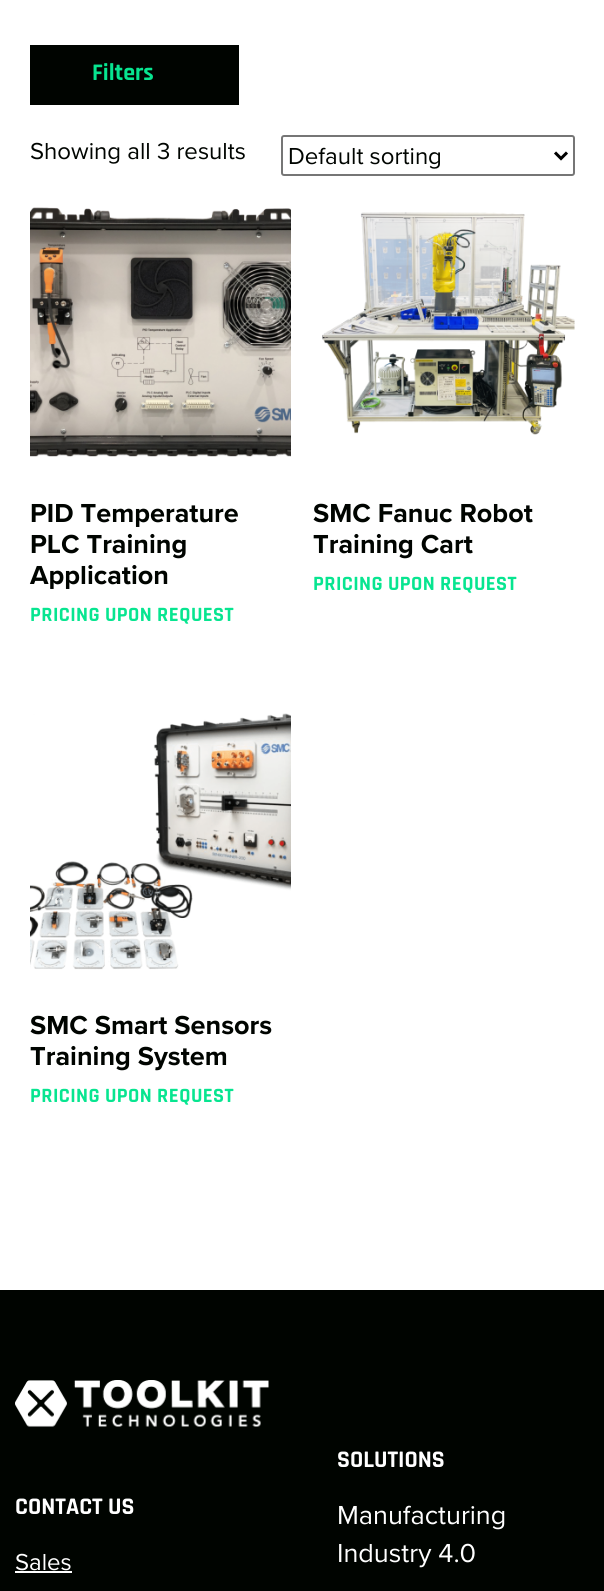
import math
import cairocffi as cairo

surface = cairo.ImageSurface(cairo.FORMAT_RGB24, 604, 1591)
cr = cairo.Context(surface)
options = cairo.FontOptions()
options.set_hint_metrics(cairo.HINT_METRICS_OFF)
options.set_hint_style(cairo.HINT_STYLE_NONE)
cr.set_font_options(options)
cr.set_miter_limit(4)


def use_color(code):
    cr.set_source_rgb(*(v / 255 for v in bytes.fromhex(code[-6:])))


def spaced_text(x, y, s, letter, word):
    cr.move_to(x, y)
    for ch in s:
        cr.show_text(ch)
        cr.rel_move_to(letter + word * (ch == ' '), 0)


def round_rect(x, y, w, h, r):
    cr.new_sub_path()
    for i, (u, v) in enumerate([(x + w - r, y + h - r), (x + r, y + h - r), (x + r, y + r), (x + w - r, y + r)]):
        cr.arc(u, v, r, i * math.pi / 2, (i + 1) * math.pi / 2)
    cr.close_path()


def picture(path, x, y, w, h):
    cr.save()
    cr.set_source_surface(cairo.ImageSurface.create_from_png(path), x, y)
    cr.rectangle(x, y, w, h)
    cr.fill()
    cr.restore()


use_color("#ffffff")
cr.paint()
use_color("#000400")
cr.rectangle(30, 45, 209, 60)
cr.fill()
cr.select_font_face("Rajdhani", cairo.FONT_SLANT_NORMAL, cairo.FONT_WEIGHT_BOLD)
cr.set_font_size(24)
use_color("#07e590")
cr.move_to(92, 80)
cr.show_text("Filters")
cr.select_font_face("Proxima Nova")
use_color("#000400")
cr.move_to(30, 159)
cr.show_text("Showing all 3 results")
round_rect(282, 136, 292, 39, 2)
use_color("#767676")
cr.stroke()
cr.new_path()
cr.move_to(555, 152.5)
cr.line_to(561, 158.5)
cr.line_to(567, 152.5)
use_color("#000000")
cr.set_line_width(3)
cr.stroke()
use_color("#000400")
cr.move_to(288, 164)
cr.show_text("Default sorting")
picture("img1.png", 30, 207, 261, 250)
cr.select_font_face("Proxima Nova", cairo.FONT_SLANT_NORMAL, cairo.FONT_WEIGHT_BOLD)
cr.set_font_size(27)
cr.move_to(30, 522)
cr.show_text("PID Temperature")
cr.move_to(30, 553)
cr.show_text("PLC Training")
cr.move_to(30, 584)
cr.show_text("Application")
cr.select_font_face("Rajdhani", cairo.FONT_SLANT_NORMAL, cairo.FONT_WEIGHT_BOLD)
cr.set_font_size(20.5)
use_color("#07e590")
spaced_text(30, 621, "PRICING UPON REQUEST", 0.4, 0)
picture("img2.png", 322, 212, 253, 223)
cr.select_font_face("Proxima Nova", cairo.FONT_SLANT_NORMAL, cairo.FONT_WEIGHT_BOLD)
cr.set_font_size(27)
use_color("#000400")
cr.move_to(313, 522)
cr.show_text("SMC Fanuc Robot")
cr.move_to(313, 553)
cr.show_text("Training Cart")
cr.select_font_face("Rajdhani", cairo.FONT_SLANT_NORMAL, cairo.FONT_WEIGHT_BOLD)
cr.set_font_size(20.5)
use_color("#07e590")
spaced_text(313, 590, "PRICING UPON REQUEST", 0.4, 0)
picture("img3.png", 30, 713, 261, 257)
cr.select_font_face("Proxima Nova", cairo.FONT_SLANT_NORMAL, cairo.FONT_WEIGHT_BOLD)
cr.set_font_size(27)
use_color("#000400")
cr.move_to(30, 1034)
cr.show_text("SMC Smart Sensors")
cr.move_to(30, 1065)
cr.show_text("Training System")
cr.select_font_face("Rajdhani", cairo.FONT_SLANT_NORMAL, cairo.FONT_WEIGHT_BOLD)
cr.set_font_size(20.5)
use_color("#07e590")
spaced_text(30, 1102, "PRICING UPON REQUEST", 0.4, 0)
use_color("#000400")
cr.rectangle(0, 1290, 604, 301)
cr.fill()
picture("img4.png", 15, 1380, 254, 47)
cr.set_font_size(24)
use_color("#ffffff")
cr.move_to(15, 1514)
cr.show_text("CONTACT US")
cr.select_font_face("Proxima Nova")
cr.move_to(15, 1570)
cr.show_text("Sales")
cr.rectangle(15, 1571, 57, 2)
cr.fill()
cr.select_font_face("Rajdhani", cairo.FONT_SLANT_NORMAL, cairo.FONT_WEIGHT_BOLD)
cr.move_to(337, 1467)
cr.show_text("SOLUTIONS")
cr.select_font_face("Proxima Nova")
cr.set_font_size(27)
cr.move_to(337, 1524)
cr.show_text("Manufacturing")
cr.move_to(337, 1562)
cr.show_text("Industry 4.0")
surface.write_to_png("result.png")
